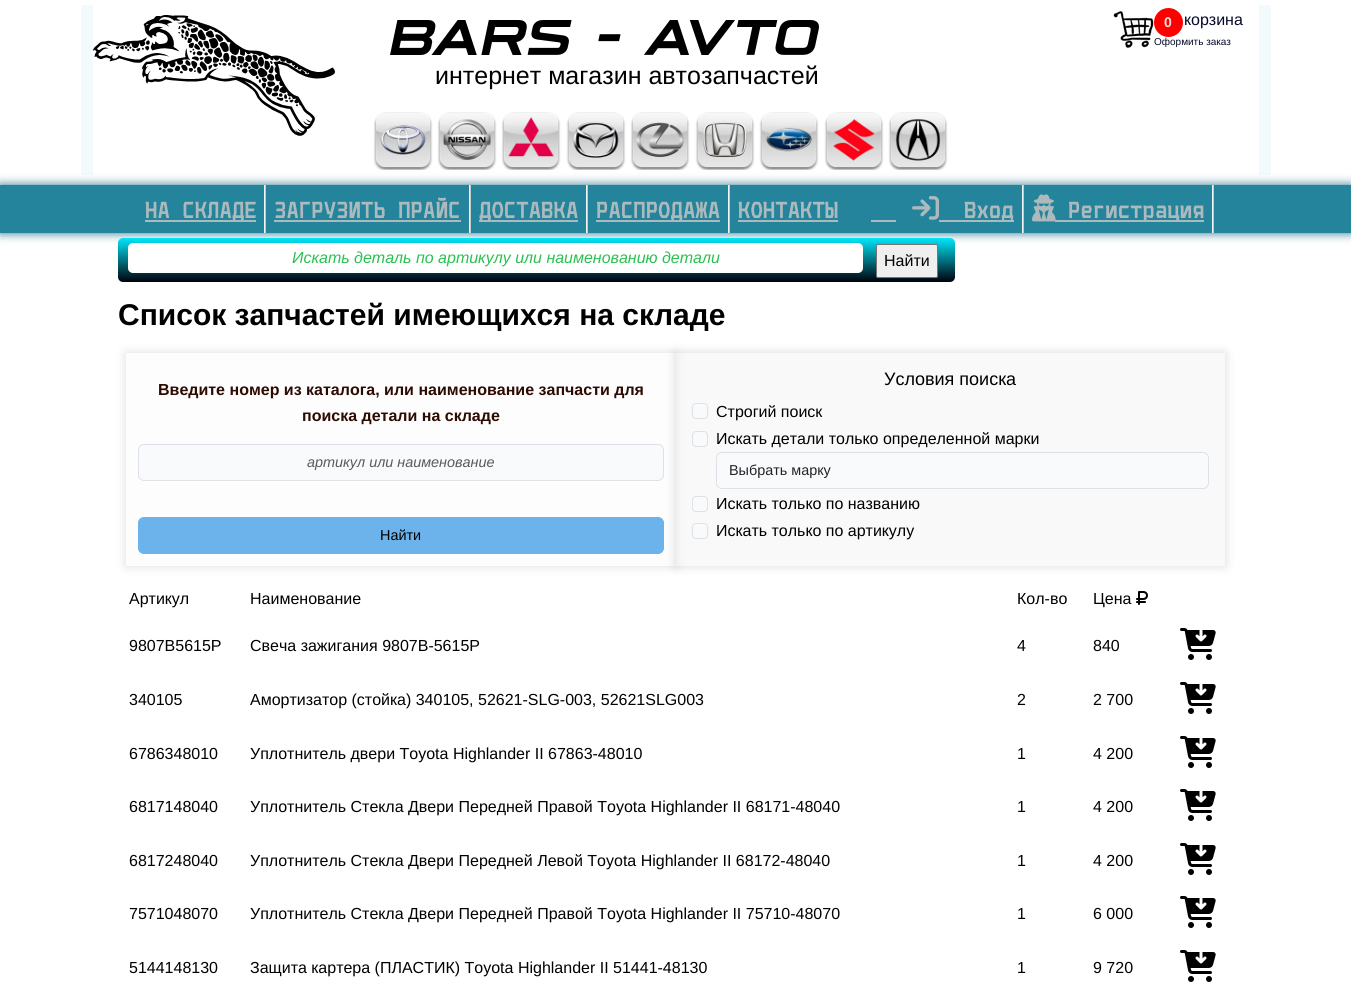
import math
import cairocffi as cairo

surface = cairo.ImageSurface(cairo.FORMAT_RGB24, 1351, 997)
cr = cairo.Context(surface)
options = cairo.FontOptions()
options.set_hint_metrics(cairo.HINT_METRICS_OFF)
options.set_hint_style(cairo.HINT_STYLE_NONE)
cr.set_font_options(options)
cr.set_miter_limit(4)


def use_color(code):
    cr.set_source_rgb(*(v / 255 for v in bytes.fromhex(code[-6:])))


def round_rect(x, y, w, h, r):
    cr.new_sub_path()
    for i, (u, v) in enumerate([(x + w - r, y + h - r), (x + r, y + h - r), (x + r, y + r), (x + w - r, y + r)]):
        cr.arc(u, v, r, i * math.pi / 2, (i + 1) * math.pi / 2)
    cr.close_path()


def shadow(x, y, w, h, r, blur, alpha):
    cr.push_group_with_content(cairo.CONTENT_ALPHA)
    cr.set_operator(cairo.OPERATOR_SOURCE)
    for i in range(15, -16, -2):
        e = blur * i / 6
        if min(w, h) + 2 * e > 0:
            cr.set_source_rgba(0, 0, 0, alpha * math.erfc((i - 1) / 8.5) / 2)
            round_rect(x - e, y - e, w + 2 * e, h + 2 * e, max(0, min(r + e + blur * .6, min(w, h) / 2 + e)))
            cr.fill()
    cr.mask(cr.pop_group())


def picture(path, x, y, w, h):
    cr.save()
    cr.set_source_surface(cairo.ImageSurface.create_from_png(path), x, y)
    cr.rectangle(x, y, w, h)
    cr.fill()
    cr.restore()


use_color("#ffffff")
cr.paint()
use_color("#f2fafc")
cr.rectangle(81, 5, 1190, 170)
cr.fill()
use_color("#ffffff")
cr.rectangle(93, 5, 1166, 170)
cr.fill()
picture("img1.png", 93, 15, 242, 121)
picture("img2.png", 1113, 11, 41, 37)
use_color("#ff0000")
cr.arc(1168.5, 22.5, 14.5, 0, 2 * math.pi)
cr.fill()
cr.select_font_face("Liberation Sans", cairo.FONT_SLANT_NORMAL, cairo.FONT_WEIGHT_BOLD)
cr.set_font_size(14)
use_color("#fadfdf")
cr.move_to(1164, 27)
cr.show_text("0")
cr.select_font_face("Liberation Sans")
cr.set_font_size(16)
use_color("#040928")
cr.move_to(1184, 25)
cr.show_text("корзина")
cr.set_font_size(10)
cr.move_to(1154, 45)
cr.show_text("Оформить заказ")
picture("img3.png", 390, 20, 429, 35)
cr.set_font_size(25)
use_color("#000000")
cr.move_to(435, 84)
cr.show_text("интернет магазин автозапчастей")
picture("img4.png", 373, 112, 60, 58)
picture("img5.png", 437, 112, 60, 58)
picture("img6.png", 501, 112, 60, 58)
picture("img7.png", 566, 112, 60, 58)
picture("img8.png", 630, 112, 60, 58)
picture("img9.png", 695, 112, 60, 58)
picture("img10.png", 759, 112, 60, 58)
picture("img11.png", 824, 112, 60, 58)
picture("img12.png", 888, 112, 60, 58)
use_color("#0b627d")
shadow(0, 185, 1351, 48, 0, 5, 0.9)
use_color("#23849b")
cr.rectangle(0, 185, 1351, 48)
cr.fill()
use_color("#acbabd")
cr.rectangle(145, 220, 111, 2)
cr.fill()
cr.select_font_face("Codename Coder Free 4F", cairo.FONT_SLANT_NORMAL, cairo.FONT_WEIGHT_BOLD)
cr.set_font_size(27)
cr.move_to(145, 218)
cr.show_text("НА СКЛАДЕ")
picture("img13.png", 264, 185, 2, 48)
cr.move_to(274, 218)
cr.show_text("ЗАГРУЗИТЬ ПРАЙС")
cr.rectangle(274, 220, 187, 2)
cr.fill()
picture("img13.png", 469, 185, 2, 48)
cr.rectangle(479, 220, 99, 2)
cr.fill()
cr.move_to(479, 218)
cr.show_text("ДОСТАВКА")
picture("img13.png", 586, 185, 2, 48)
cr.rectangle(596, 220, 124, 2)
cr.fill()
cr.move_to(596, 218)
cr.show_text("РАСПРОДАЖА")
picture("img13.png", 728, 185, 2, 48)
cr.move_to(738, 218)
cr.show_text("КОНТАКТЫ")
cr.rectangle(738, 220, 100, 2)
cr.fill()
cr.rectangle(871, 220, 25, 2)
cr.fill()
picture("img14.png", 912, 196, 27, 24)
cr.rectangle(939, 220, 75, 2)
cr.fill()
cr.move_to(964, 218)
cr.show_text("Вход")
picture("img13.png", 1022, 185, 2, 48)
picture("img15.png", 1032, 194, 24, 28)
cr.rectangle(1055, 220, 149, 2)
cr.fill()
cr.move_to(1068, 218)
cr.show_text("Регистрация")
picture("img13.png", 1212, 185, 2, 48)
gradient = cairo.LinearGradient(537, 238, 537, 282)
gradient.add_color_stop_rgba(0, 0, 0.902, 0.98, 1)
gradient.add_color_stop_rgba(1, 0.004, 0.004, 0.043, 1)
cr.set_source(gradient)
round_rect(118, 238, 837, 44, 5)
cr.fill()
use_color("#ffffff")
round_rect(128, 243, 735, 30, 5)
cr.fill()
cr.select_font_face("Liberation Sans", cairo.FONT_SLANT_ITALIC)
cr.set_font_size(16)
use_color("#2ac052")
cr.move_to(292, 263)
cr.show_text("Искать деталь по артикулу или наименованию детали")
use_color("#efefef")
round_rect(876.5, 244.5, 61, 33, 1.5)
cr.fill_preserve()
use_color("#767676")
cr.set_line_width(1)
cr.stroke()
cr.select_font_face("Liberation Sans")
use_color("#000000")
cr.move_to(884, 266)
cr.show_text("Найти")
cr.select_font_face("Liberation Sans", cairo.FONT_SLANT_NORMAL, cairo.FONT_WEIGHT_BOLD)
cr.set_font_size(30)
cr.move_to(118, 325)
cr.show_text("Список запчастей имеющихся на складе")
use_color("#bbbbbb")
shadow(126, 353, 550, 213, 0, 5, 0.5)
use_color("#fdfdfd")
cr.rectangle(126, 353, 550, 213)
cr.fill()
cr.set_font_size(16)
use_color("#2b0b02")
cr.move_to(158, 395)
cr.show_text("Введите номер из каталога, или наименование запчасти для")
cr.move_to(302, 421)
cr.show_text("поиска детали на складе")
use_color("#f8fafc")
round_rect(138.5, 444.5, 525, 36, 5.5)
cr.fill_preserve()
use_color("#dee2e6")
cr.stroke()
cr.select_font_face("Liberation Sans", cairo.FONT_SLANT_ITALIC)
cr.set_font_size(14.4)
use_color("#575a5e")
cr.move_to(307, 467)
cr.show_text("артикул или наименование")
cr.save()
cr.set_fill_rule(cairo.FILL_RULE_EVEN_ODD)
cr.new_path()
cr.move_to(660, 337)
cr.line_to(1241, 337)
cr.line_to(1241, 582)
cr.line_to(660, 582)
cr.close_path()
cr.move_to(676, 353)
cr.line_to(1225, 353)
cr.line_to(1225, 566)
cr.line_to(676, 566)
cr.close_path()
cr.clip()
use_color("#b3b3b3")
shadow(676, 353, 549, 213, 0, 5, 0.5)
cr.restore()
use_color("#6cb2eb")
round_rect(138.5, 517.5, 525, 36, 5.5)
cr.fill_preserve()
cr.stroke()
cr.select_font_face("Liberation Sans")
use_color("#000000")
cr.move_to(380, 540)
cr.show_text("Найти")
cr.set_source_rgba(0.945, 0.945, 0.945, 0.44)
cr.rectangle(677, 353, 548, 213)
cr.fill()
cr.set_font_size(18)
use_color("#000000")
cr.move_to(884, 385)
cr.show_text("Условия поиска")
use_color("#f8fafc")
round_rect(692.5, 403.5, 15, 15, 3.5)
cr.fill_preserve()
use_color("#dee2e6")
cr.stroke()
cr.set_font_size(16)
use_color("#000000")
cr.move_to(716, 417)
cr.show_text("Строгий поиск")
use_color("#f8fafc")
round_rect(692.5, 431.5, 15, 15, 3.5)
cr.fill_preserve()
use_color("#dee2e6")
cr.stroke()
use_color("#000000")
cr.move_to(716, 444)
cr.show_text("Искать детали только определенной марки")
use_color("#f8fafc")
round_rect(716.5, 452.5, 492, 36, 5.5)
cr.fill_preserve()
use_color("#dee2e6")
cr.stroke()
cr.set_font_size(14.4)
use_color("#212529")
cr.move_to(729, 475)
cr.show_text("Выбрать марку")
use_color("#f8fafc")
round_rect(692.5, 496.5, 15, 15, 3.5)
cr.fill_preserve()
use_color("#dee2e6")
cr.stroke()
cr.set_font_size(16)
use_color("#000000")
cr.move_to(716, 509)
cr.show_text("Искать только по названию")
use_color("#f8fafc")
round_rect(692.5, 523.5, 15, 15, 3.5)
cr.fill_preserve()
use_color("#dee2e6")
cr.stroke()
use_color("#000000")
cr.move_to(716, 536)
cr.show_text("Искать только по артикулу")
cr.move_to(129, 604)
cr.show_text("Артикул")
cr.move_to(250, 604)
cr.show_text("Наименование")
cr.move_to(1017, 604)
cr.show_text("Кол-во")
cr.move_to(1093, 604)
cr.show_text("Цена")
picture("img16.png", 1136, 591, 12, 14)
cr.move_to(129, 651)
cr.show_text("9807B5615P")
cr.move_to(250, 651)
cr.show_text("Свеча зажигания 9807B-5615P")
cr.move_to(1017, 651)
cr.show_text("4")
cr.move_to(1093, 651)
cr.show_text("840")
picture("img17.png", 1180, 628, 36, 32)
cr.move_to(129, 705)
cr.show_text("340105")
cr.move_to(250, 705)
cr.show_text("Амортизатор (стойка) 340105, 52621-SLG-003, 52621SLG003")
cr.move_to(1017, 705)
cr.show_text("2")
cr.move_to(1093, 705)
cr.show_text("2 700")
picture("img17.png", 1180, 682, 36, 32)
cr.move_to(129, 759)
cr.show_text("6786348010")
cr.move_to(250, 759)
cr.show_text("Уплотнитель двери Toyota Highlander II 67863-48010")
cr.move_to(1017, 759)
cr.show_text("1")
cr.move_to(1093, 759)
cr.show_text("4 200")
picture("img17.png", 1180, 736, 36, 32)
cr.move_to(129, 812)
cr.show_text("6817148040")
cr.move_to(250, 812)
cr.show_text("Уплотнитель Стекла Двери Передней Правой Toyota Highlander II 68171-48040")
cr.move_to(1017, 812)
cr.show_text("1")
cr.move_to(1093, 812)
cr.show_text("4 200")
picture("img17.png", 1180, 789, 36, 32)
cr.move_to(129, 866)
cr.show_text("6817248040")
cr.move_to(250, 866)
cr.show_text("Уплотнитель Стекла Двери Передней Левой Toyota Highlander II 68172-48040")
cr.move_to(1017, 866)
cr.show_text("1")
cr.move_to(1093, 866)
cr.show_text("4 200")
picture("img17.png", 1180, 843, 36, 32)
cr.move_to(129, 919)
cr.show_text("7571048070")
cr.move_to(250, 919)
cr.show_text("Уплотнитель Стекла Двери Передней Правой Toyota Highlander II 75710-48070")
cr.move_to(1017, 919)
cr.show_text("1")
cr.move_to(1093, 919)
cr.show_text("6 000")
picture("img17.png", 1180, 896, 36, 32)
cr.move_to(129, 973)
cr.show_text("5144148130")
cr.move_to(250, 973)
cr.show_text("Защита картера (ПЛАСТИК) Toyota Highlander II 51441-48130")
cr.move_to(1017, 973)
cr.show_text("1")
cr.move_to(1093, 973)
cr.show_text("9 720")
picture("img17.png", 1180, 950, 36, 32)
surface.write_to_png("result.png")
